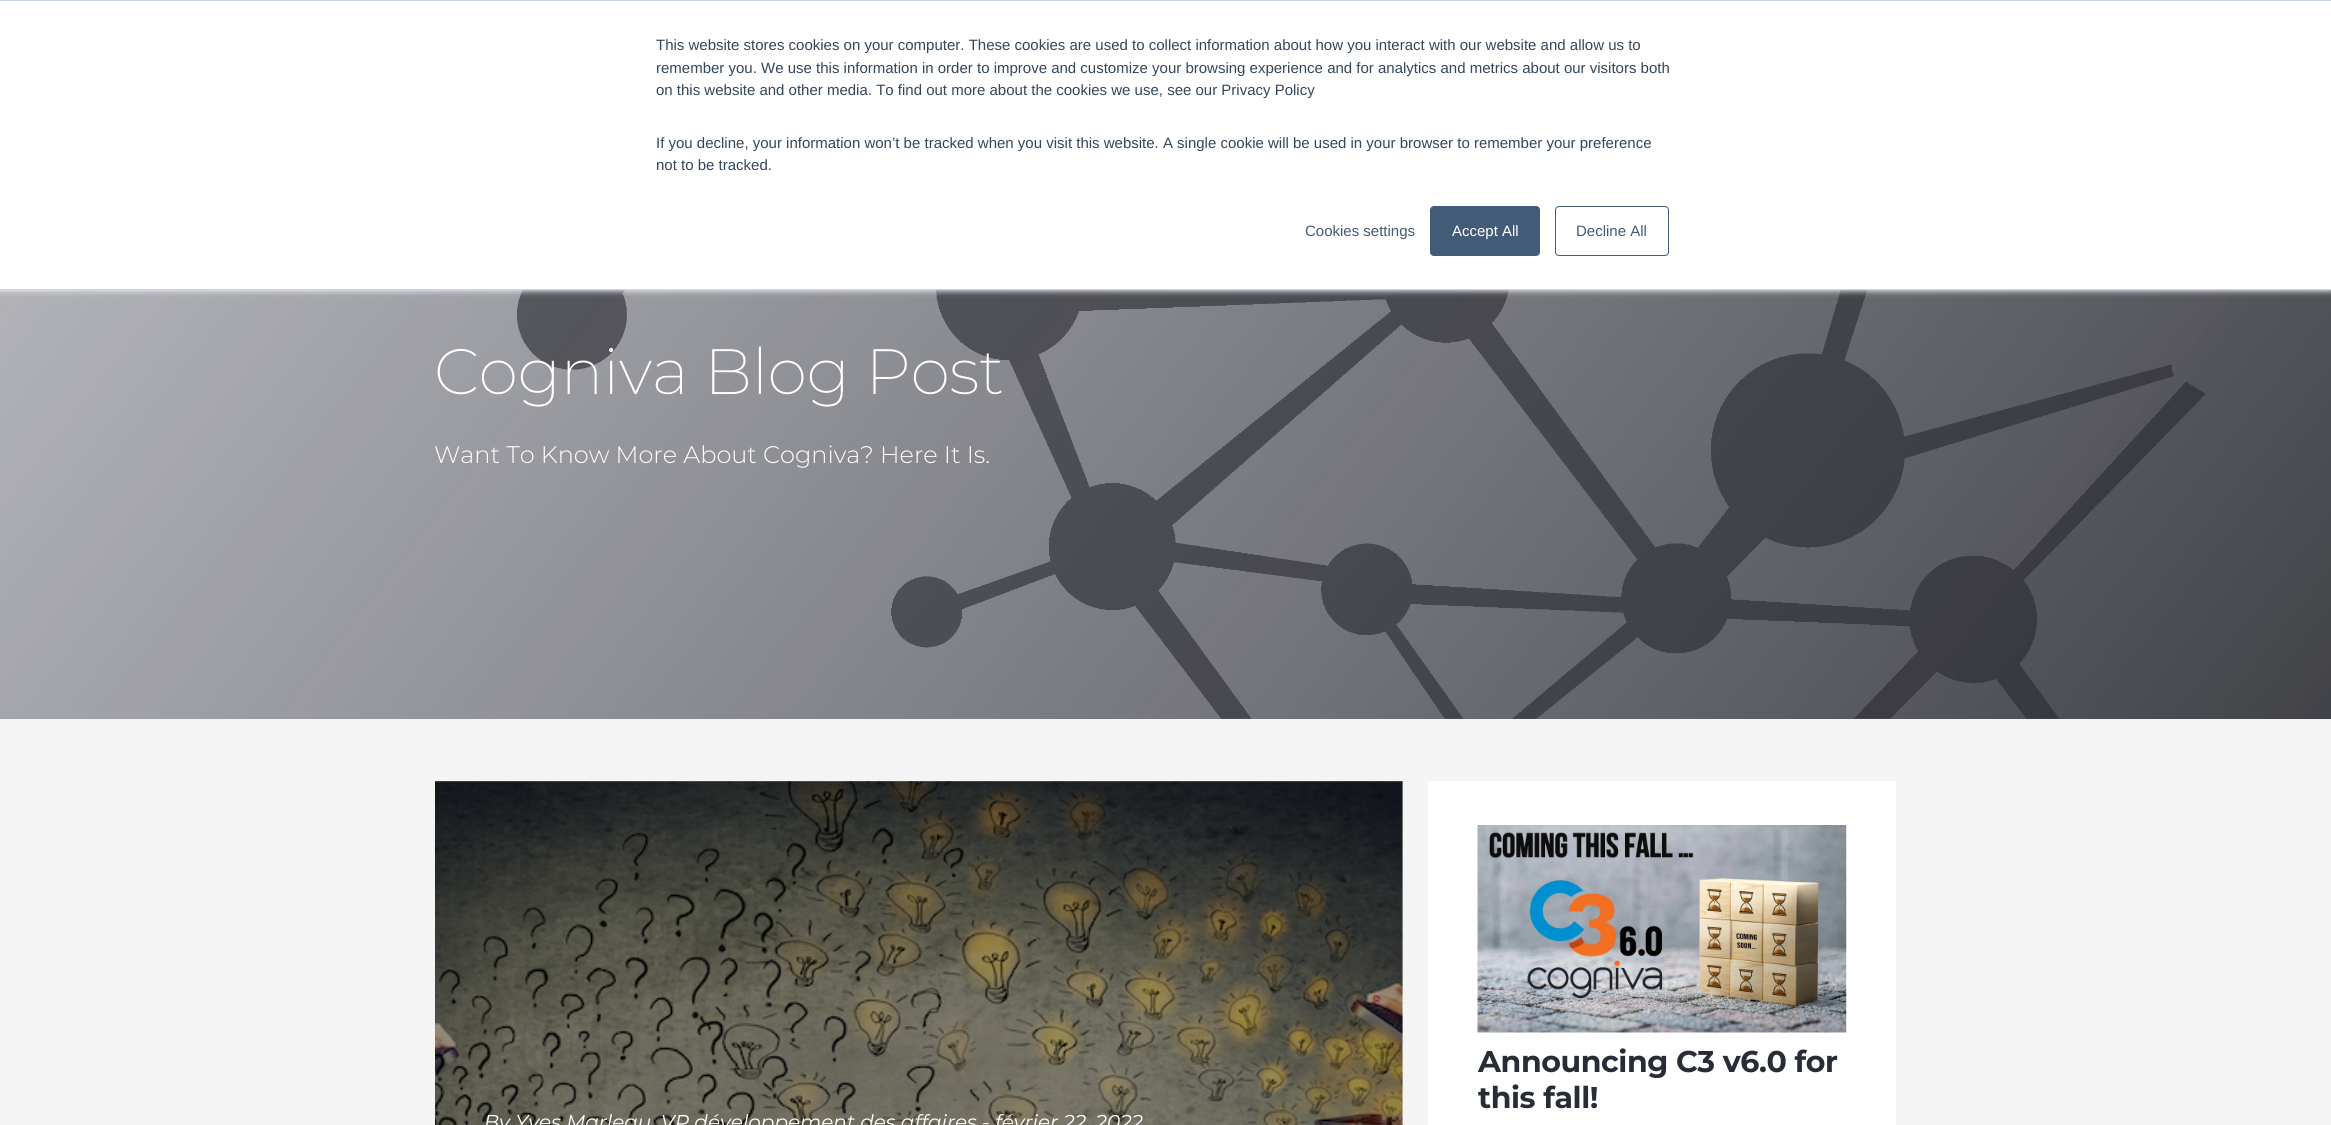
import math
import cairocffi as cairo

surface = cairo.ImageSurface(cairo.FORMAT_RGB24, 2331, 1125)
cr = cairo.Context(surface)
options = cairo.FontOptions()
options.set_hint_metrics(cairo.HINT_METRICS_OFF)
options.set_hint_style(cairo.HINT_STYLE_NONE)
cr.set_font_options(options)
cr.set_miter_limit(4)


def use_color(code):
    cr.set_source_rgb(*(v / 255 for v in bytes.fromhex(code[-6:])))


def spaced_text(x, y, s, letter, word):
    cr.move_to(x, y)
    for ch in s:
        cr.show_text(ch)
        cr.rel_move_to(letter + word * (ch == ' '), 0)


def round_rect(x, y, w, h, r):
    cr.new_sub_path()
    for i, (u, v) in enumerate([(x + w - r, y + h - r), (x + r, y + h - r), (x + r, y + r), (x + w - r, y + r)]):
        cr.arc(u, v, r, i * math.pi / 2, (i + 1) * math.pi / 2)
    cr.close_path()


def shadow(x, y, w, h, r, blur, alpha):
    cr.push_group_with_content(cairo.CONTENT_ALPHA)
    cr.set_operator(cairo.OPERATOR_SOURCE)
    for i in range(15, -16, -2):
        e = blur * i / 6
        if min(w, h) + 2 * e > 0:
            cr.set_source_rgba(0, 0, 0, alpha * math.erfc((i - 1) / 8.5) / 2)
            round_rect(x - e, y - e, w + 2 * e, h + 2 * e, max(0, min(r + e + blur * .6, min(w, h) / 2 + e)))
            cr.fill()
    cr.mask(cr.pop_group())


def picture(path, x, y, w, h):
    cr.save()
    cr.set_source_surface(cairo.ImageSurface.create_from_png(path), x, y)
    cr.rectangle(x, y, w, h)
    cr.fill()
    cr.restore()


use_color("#ffffff")
cr.paint()
picture("img1.png", 517, 290, 1689, 429)
gradient = cairo.LinearGradient(267, -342, 2064, 1061)
gradient.add_color_stop_rgba(0, 0.318, 0.325, 0.373, 0.4)
gradient.add_color_stop_rgba(1, 0.176, 0.18, 0.2, 0.9)
cr.set_source(gradient)
cr.rectangle(0, 290, 2331, 429)
cr.fill()
use_color("#eaf0f6")
shadow(0, 1, 2331, 290, 0, 3, 1)
use_color("#ffffff")
cr.rectangle(0, 1, 2331, 288)
cr.fill()
use_color("#cbd6e2")
cr.rectangle(0, 0, 2331, 1)
cr.fill()
cr.rectangle(0, 289, 2331, 1)
cr.fill()
cr.select_font_face("Liberation Sans")
cr.set_font_size(15)
use_color("#33475b")
cr.move_to(656, 50)
cr.show_text("This website stores cookies on your computer. These cookies are used to collect information about how you interact with our website and allow us to")
cr.move_to(656, 73)
cr.show_text("remember you. We use this information in order to improve and customize your browsing experience and for analytics and metrics about our visitors both")
cr.move_to(656, 95)
cr.show_text("on this website and other media. To find out more about the cookies we use, see our Privacy Policy")
cr.move_to(656, 148)
cr.show_text("If you decline, your information won’t be tracked when you visit this website. A single cookie will be used in your browser to remember your preference")
cr.move_to(656, 170)
cr.show_text("not to be tracked.")
use_color("#425b76")
cr.move_to(1305, 236)
cr.show_text("Cookies settings")
round_rect(1430.5, 206.5, 109, 49, 3.5)
cr.fill_preserve()
cr.set_line_width(1)
cr.stroke()
use_color("#ffffff")
cr.move_to(1452, 236)
cr.show_text("Accept All")
round_rect(1555.5, 206.5, 113, 49, 3.5)
use_color("#425b76")
cr.stroke()
cr.move_to(1576, 236)
cr.show_text("Decline All")
cr.select_font_face("Montserrat ExtraLight")
cr.set_font_size(64)
use_color("#ffffff")
spaced_text(434, 394, "Cogniva Blog Post", -0.4, 0)
cr.select_font_face("Montserrat Light")
cr.set_font_size(24)
cr.move_to(434, 463)
cr.show_text("Want To Know More About Cogniva? Here It Is.")
use_color("#f4f4f4")
cr.rectangle(0, 719, 2331, 406)
cr.fill()
use_color("#ffffff")
cr.rectangle(1428, 781, 468, 344)
cr.fill()
picture("img2.png", 1477, 825, 370, 208)
cr.select_font_face("Montserrat", cairo.FONT_SLANT_NORMAL, cairo.FONT_WEIGHT_BOLD)
cr.set_font_size(30)
use_color("#282c36")
spaced_text(1478, 1072, "Announcing C3 v6.0 for", -0.4, 0)
spaced_text(1478, 1108, "this fall!", -0.4, 0)
picture("img3.png", 435, 781, 968, 344)
cr.select_font_face("Montserrat", cairo.FONT_SLANT_ITALIC)
cr.set_font_size(20)
use_color("#ffffff")
cr.move_to(484, 1129)
cr.show_text("By Yves Marleau, VP développement des affaires - février 22, 2022")
surface.write_to_png("result.png")
